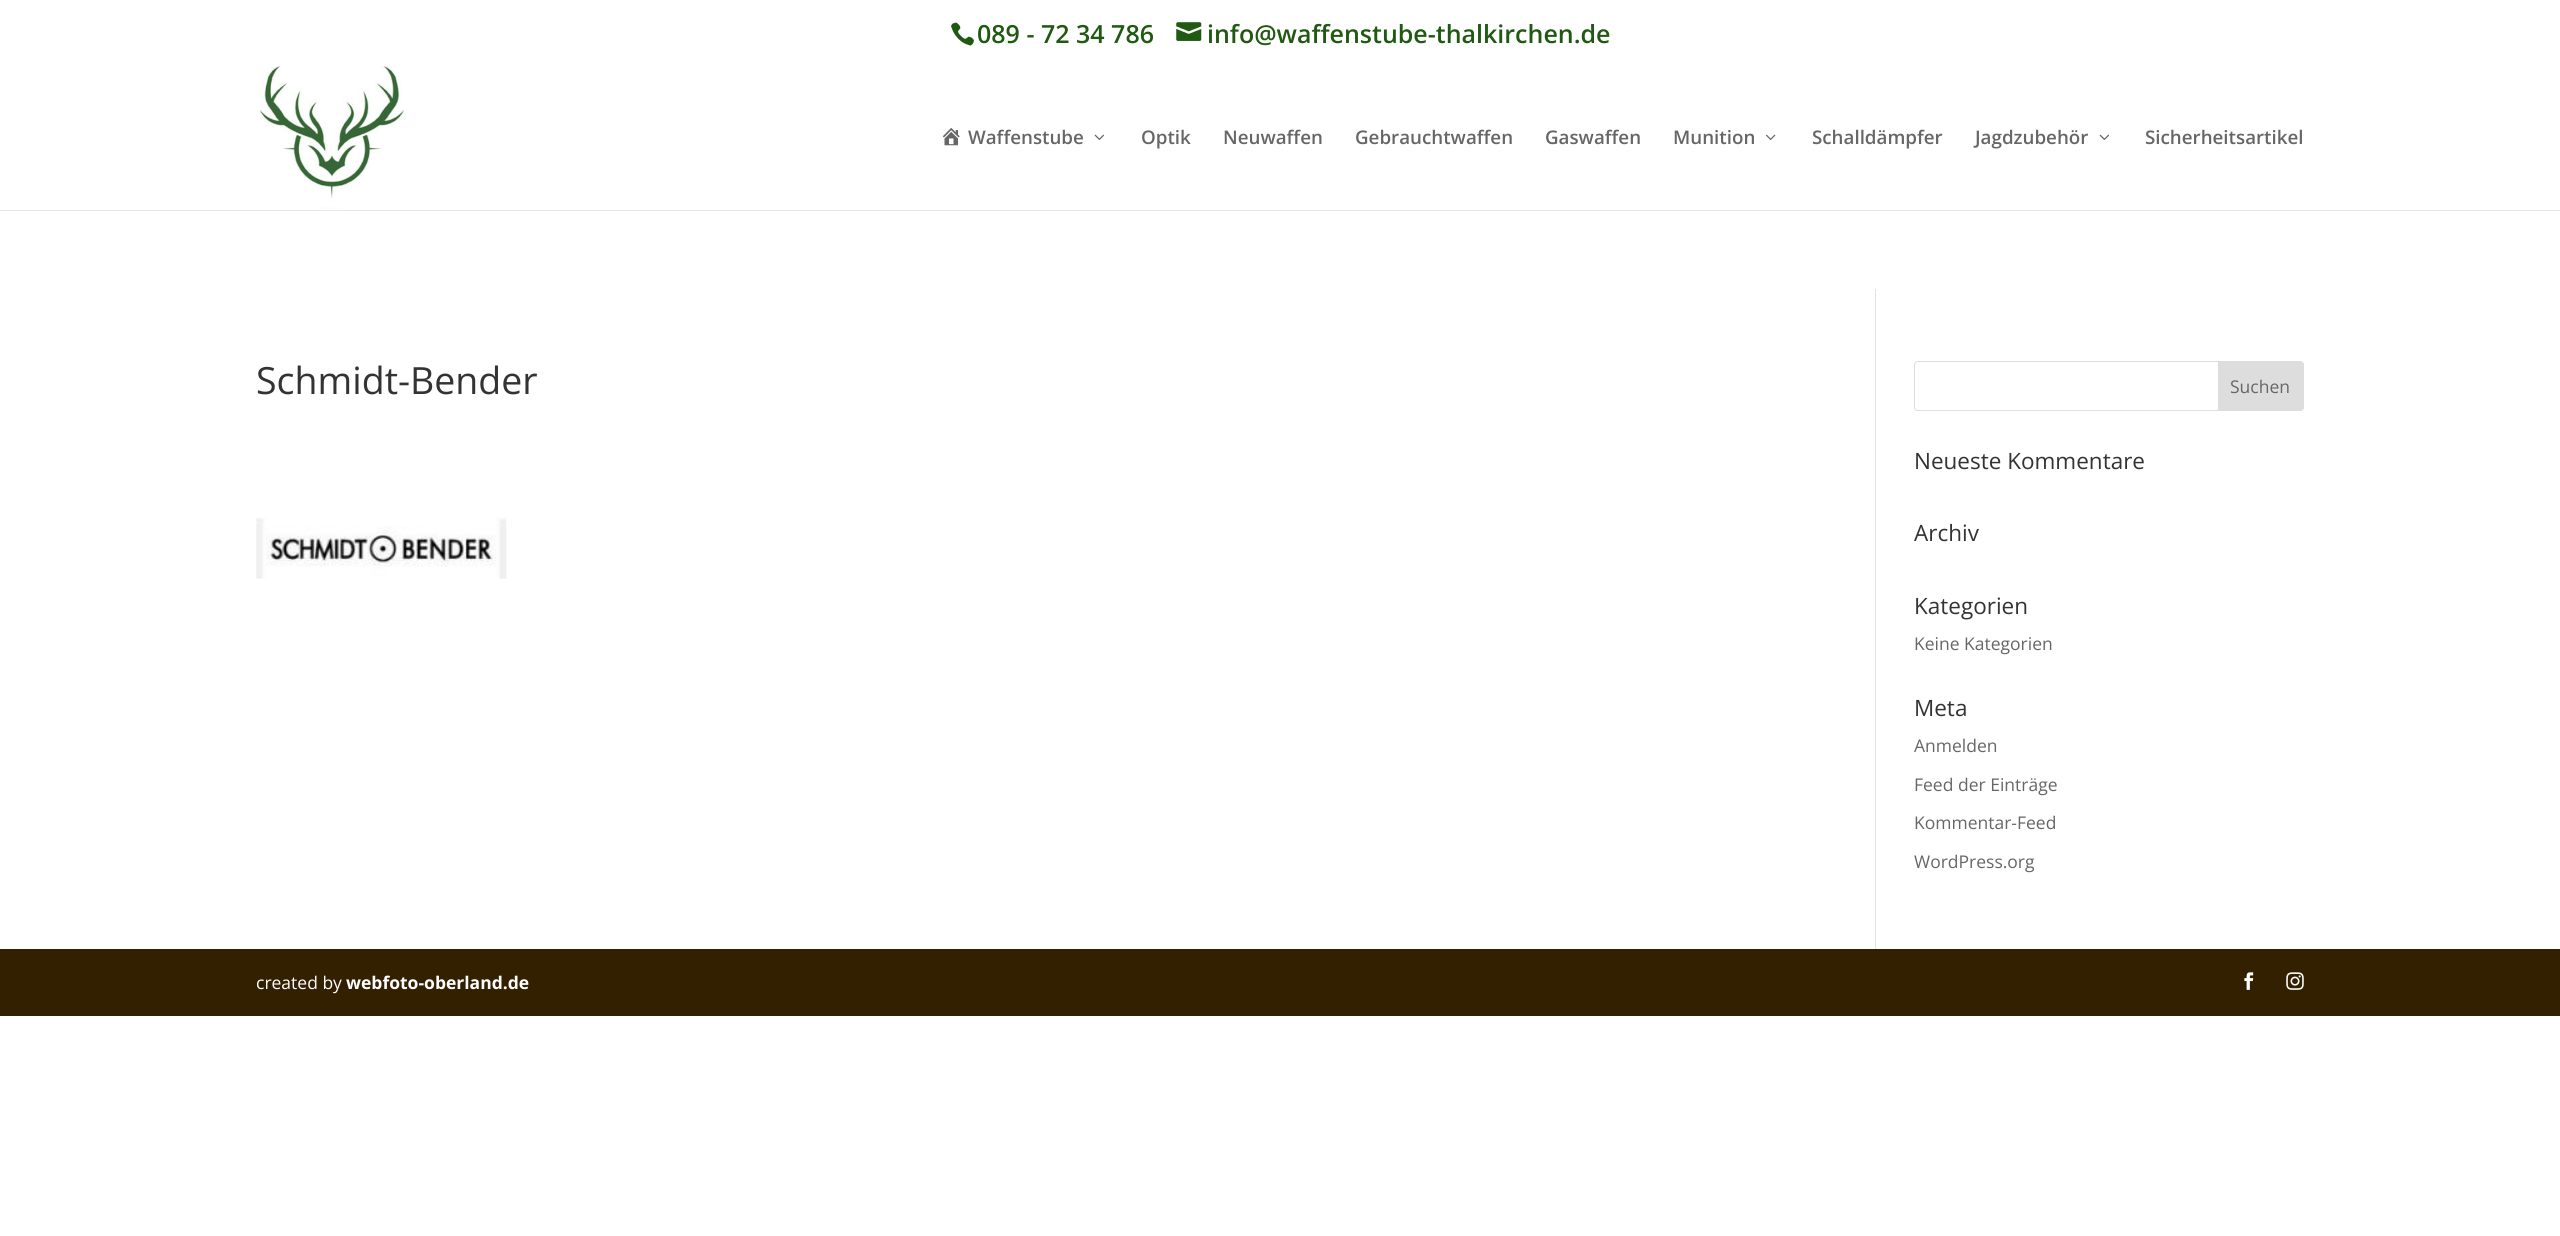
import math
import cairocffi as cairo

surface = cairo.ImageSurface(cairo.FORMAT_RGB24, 2560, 1236)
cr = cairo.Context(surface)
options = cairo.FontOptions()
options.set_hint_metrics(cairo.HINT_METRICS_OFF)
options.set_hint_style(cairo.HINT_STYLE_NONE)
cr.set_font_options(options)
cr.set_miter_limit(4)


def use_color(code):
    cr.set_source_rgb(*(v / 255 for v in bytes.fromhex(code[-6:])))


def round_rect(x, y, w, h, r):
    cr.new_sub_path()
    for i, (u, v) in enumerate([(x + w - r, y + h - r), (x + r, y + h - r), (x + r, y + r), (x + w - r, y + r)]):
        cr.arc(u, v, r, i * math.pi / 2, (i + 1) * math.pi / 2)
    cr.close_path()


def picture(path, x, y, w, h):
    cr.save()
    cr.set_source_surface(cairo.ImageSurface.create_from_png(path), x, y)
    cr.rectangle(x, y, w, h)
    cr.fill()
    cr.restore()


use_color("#ffffff")
cr.paint()
picture("img1.png", 951, 22, 23, 24)
cr.select_font_face("Open Sans SemiBold")
cr.set_font_size(25)
use_color("#1f5912")
cr.move_to(977, 43)
cr.show_text("089 - 72 34 786")
picture("img2.png", 1176, 22, 26, 19)
cr.move_to(1207, 43)
cr.show_text("info@waffenstube-thalkirchen.de")
use_color("#e6e6e6")
cr.rectangle(0, 210, 2560, 1)
cr.fill()
picture("img3.png", 260, 66, 144, 143)
picture("img4.png", 942, 128, 18, 18)
cr.set_font_size(18.75)
use_color("#666666")
cr.move_to(968, 144)
cr.show_text("Waffenstube")
picture("img5.png", 1094, 134, 10, 6)
cr.move_to(1141, 144)
cr.show_text("Optik")
cr.move_to(1223, 144)
cr.show_text("Neuwaffen")
cr.move_to(1355, 144)
cr.show_text("Gebrauchtwaffen")
cr.move_to(1545, 144)
cr.show_text("Gaswaffen")
cr.move_to(1673, 144)
cr.show_text("Munition")
picture("img6.png", 1766, 134, 10, 6)
cr.move_to(1812, 144)
cr.show_text("Schalldämpfer")
cr.move_to(1975, 144)
cr.show_text("Jagdzubehör")
picture("img5.png", 2099, 134, 10, 6)
cr.move_to(2145, 144)
cr.show_text("Sicherheitsartikel")
use_color("#e2e2e2")
cr.rectangle(1875, 289, 1, 660)
cr.fill()
cr.select_font_face("Open Sans")
cr.set_font_size(37.5)
use_color("#333333")
cr.move_to(256, 394)
cr.show_text("Schmidt-Bender")
picture("img7.png", 256, 517, 251, 62)
round_rect(1914.5, 361.5, 389, 49, 3.5)
use_color("#dddddd")
cr.set_line_width(1)
cr.stroke()
cr.new_path()
cr.move_to(2218.5, 361.5)
cr.line_to(2300, 361.5)
cr.curve_to(2302, 361.5, 2303.5, 363, 2303.5, 365)
cr.line_to(2303.5, 407)
cr.curve_to(2303.5, 409, 2302, 410.5, 2300, 410.5)
cr.line_to(2218.5, 410.5)
cr.close_path()
cr.fill_preserve()
cr.stroke()
cr.set_font_size(17.5)
use_color("#666666")
cr.move_to(2230, 393)
cr.show_text("Suchen")
cr.set_font_size(22.5)
use_color("#333333")
cr.move_to(1914, 469)
cr.show_text("Neueste Kommentare")
cr.move_to(1914, 541)
cr.show_text("Archiv")
cr.move_to(1914, 614)
cr.show_text("Kategorien")
cr.set_font_size(17.5)
use_color("#666666")
cr.move_to(1914, 650)
cr.show_text("Keine Kategorien")
cr.set_font_size(22.5)
use_color("#333333")
cr.move_to(1914, 716)
cr.show_text("Meta")
cr.set_font_size(17.5)
use_color("#666666")
cr.move_to(1914, 752)
cr.show_text("Anmelden")
cr.move_to(1914, 791)
cr.show_text("Feed der Einträge")
cr.move_to(1914, 829)
cr.show_text("Kommentar-Feed")
cr.move_to(1914, 868)
cr.show_text("WordPress.org")
use_color("#332000")
cr.rectangle(0, 949, 2560, 67)
cr.fill()
use_color("#ffffff")
cr.move_to(256, 989)
cr.show_text("created by")
cr.select_font_face("Open Sans", cairo.FONT_SLANT_NORMAL, cairo.FONT_WEIGHT_BOLD)
cr.move_to(346, 989)
cr.show_text("webfoto-oberland.de")
picture("img8.png", 2244, 972, 10, 18)
picture("img9.png", 2286, 972, 18, 18)
surface.write_to_png("result.png")
